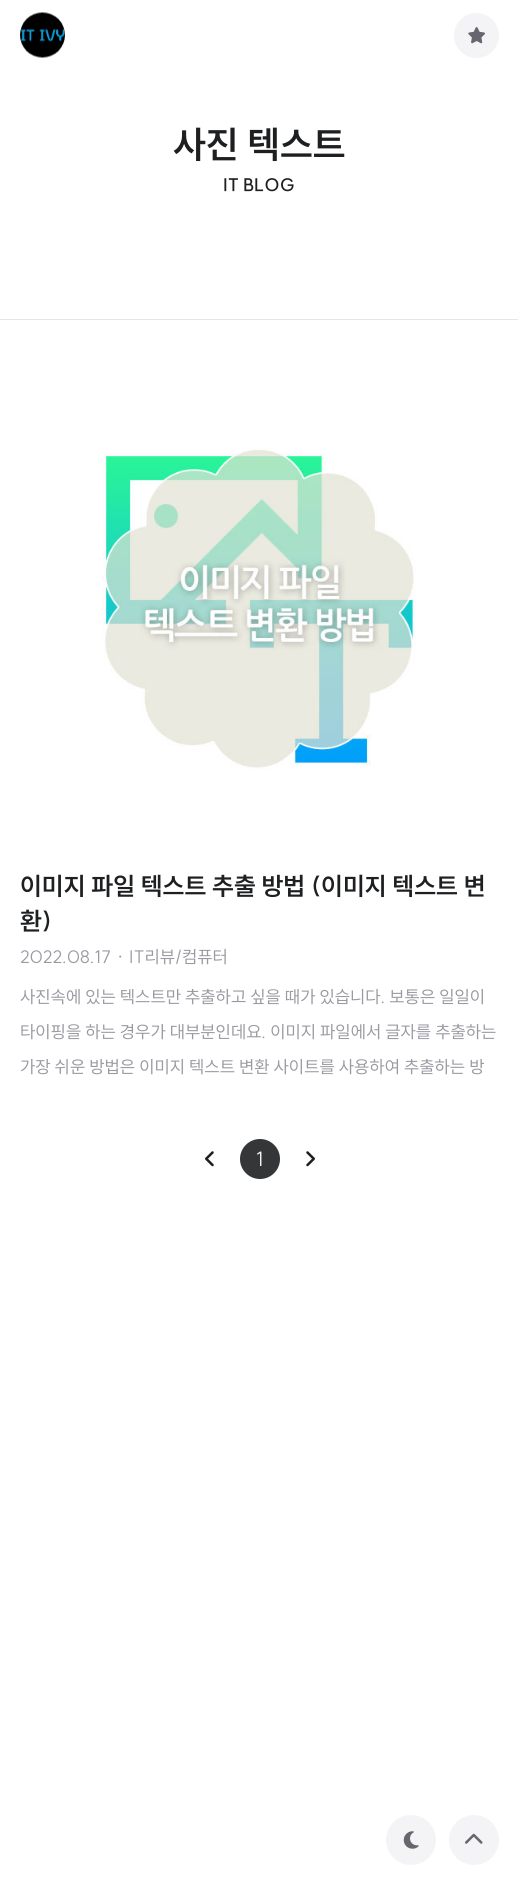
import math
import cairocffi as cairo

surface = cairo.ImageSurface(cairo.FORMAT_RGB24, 518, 1879)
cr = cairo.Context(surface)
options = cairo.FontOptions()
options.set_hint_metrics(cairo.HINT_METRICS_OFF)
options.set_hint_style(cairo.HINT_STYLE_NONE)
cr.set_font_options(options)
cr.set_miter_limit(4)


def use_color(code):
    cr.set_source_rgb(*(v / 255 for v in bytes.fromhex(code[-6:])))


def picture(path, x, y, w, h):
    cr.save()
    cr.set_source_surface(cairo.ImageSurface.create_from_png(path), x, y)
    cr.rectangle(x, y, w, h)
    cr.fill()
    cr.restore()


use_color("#ffffff")
cr.paint()
picture("img1.png", 20, 12, 45, 46)
use_color("#f4f4f6")
cr.arc(476.5, 35.5, 22.5, 0, 2 * math.pi)
cr.fill()
picture("img2.png", 468, 27, 17, 17)
use_color("#e6e6e9")
cr.rectangle(0, 319, 518, 1)
cr.fill()
cr.select_font_face("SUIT", cairo.FONT_SLANT_NORMAL, cairo.FONT_WEIGHT_BOLD)
cr.set_font_size(37.5)
use_color("#1e1f21")
cr.move_to(173, 158)
cr.show_text("사진 텍스트")
cr.set_font_size(17.5)
cr.move_to(223, 191)
cr.show_text("IT BLOG")
picture("img3.png", 103, 448, 313, 322)
cr.set_font_size(25)
cr.move_to(20, 895)
cr.show_text("이미지 파일 텍스트 추출 방법 (이미지 텍스트 변")
cr.move_to(20, 930)
cr.show_text("환)")
cr.select_font_face("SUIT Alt")
cr.set_font_size(17.5)
use_color("#9999a1")
cr.move_to(20, 963)
cr.show_text("2022.08.17")
cr.select_font_face("SUIT")
cr.move_to(116, 963)
cr.show_text("·")
cr.move_to(129, 963)
cr.show_text("IT리뷰/컴퓨터")
cr.move_to(20, 1003)
cr.show_text("사진속에 있는 텍스트만 추출하고 싶을 때가 있습니다. 보통은 일일이")
cr.move_to(20, 1038)
cr.show_text("타이핑을 하는 경우가 대부분인데요. 이미지 파일에서 글자를 추출하는")
cr.move_to(20, 1073)
cr.show_text("가장 쉬운 방법은 이미지 텍스트 변환 사이트를 사용하여 추출하는 방")
picture("img4.png", 205, 1151, 9, 16)
use_color("#353638")
cr.arc(260, 1159, 20, 0, 2 * math.pi)
cr.fill()
cr.set_font_size(20)
use_color("#f4f4f6")
cr.move_to(256, 1166)
cr.show_text("1")
picture("img5.png", 306, 1151, 9, 16)
cr.arc(411, 1840, 25, 0, 2 * math.pi)
cr.fill()
picture("img6.png", 403, 1831, 16, 18)
cr.arc(474, 1840, 25, 0, 2 * math.pi)
cr.fill()
picture("img7.png", 465, 1833, 18, 11)
surface.write_to_png("result.png")
